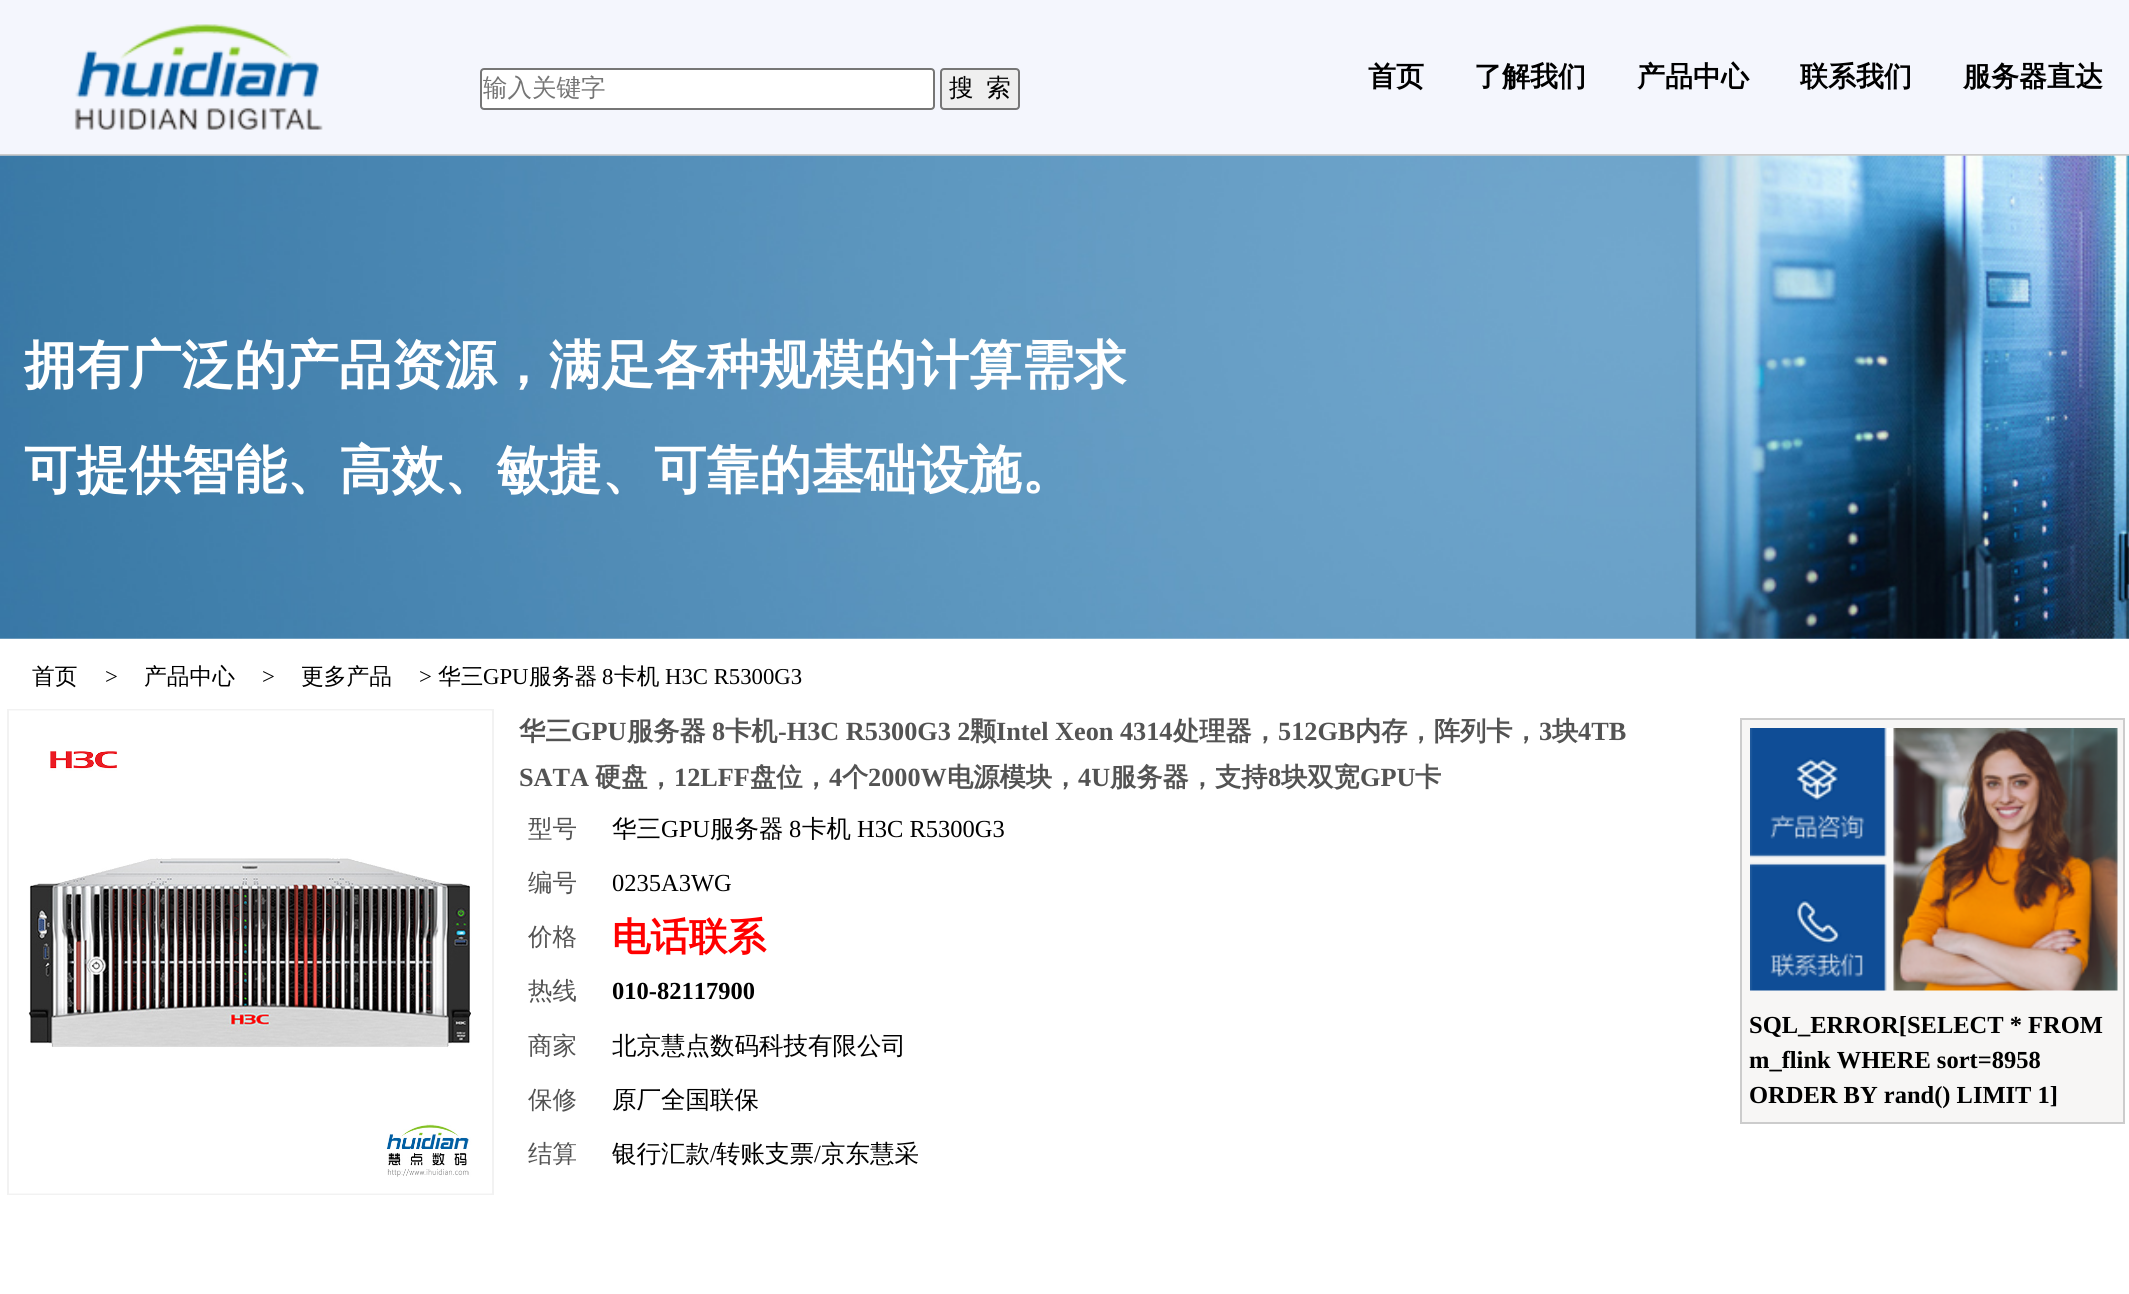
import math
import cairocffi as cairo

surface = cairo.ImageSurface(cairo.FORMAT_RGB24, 2129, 1294)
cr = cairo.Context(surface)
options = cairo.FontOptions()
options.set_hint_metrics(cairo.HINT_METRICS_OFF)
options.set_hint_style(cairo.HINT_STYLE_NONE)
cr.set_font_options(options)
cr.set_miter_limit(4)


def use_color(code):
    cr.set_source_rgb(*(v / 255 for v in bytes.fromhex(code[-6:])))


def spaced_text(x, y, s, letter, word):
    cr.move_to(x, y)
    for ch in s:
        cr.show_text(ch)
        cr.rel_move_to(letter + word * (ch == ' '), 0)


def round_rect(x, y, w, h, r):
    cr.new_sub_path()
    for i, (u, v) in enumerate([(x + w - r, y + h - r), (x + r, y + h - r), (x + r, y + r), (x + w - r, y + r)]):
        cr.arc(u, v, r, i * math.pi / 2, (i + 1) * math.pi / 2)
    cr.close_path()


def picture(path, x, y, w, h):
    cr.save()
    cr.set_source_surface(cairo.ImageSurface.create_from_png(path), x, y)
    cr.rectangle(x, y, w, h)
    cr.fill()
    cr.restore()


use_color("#ffffff")
cr.paint()
use_color("#f4f6fd")
cr.rectangle(0, 0, 2129, 154)
cr.fill()
use_color("#cccccc")
cr.rectangle(0, 154, 2129, 2)
cr.fill()
picture("img1.png", 74, 24, 249, 106)
use_color("#ffffff")
round_rect(481, 69, 453, 40, 3)
cr.fill_preserve()
use_color("#767676")
cr.stroke()
cr.select_font_face("WenQuanYi Zen Hei Medium")
cr.set_font_size(24.5)
use_color("#757575")
cr.move_to(483, 96)
cr.show_text("输入关键字")
use_color("#efefef")
round_rect(941, 69, 78, 40, 3)
cr.fill_preserve()
use_color("#767676")
cr.stroke()
use_color("#000000")
spaced_text(949, 96, "搜  索", 0, -1)
cr.select_font_face("WenQuanYi Zen Hei", cairo.FONT_SLANT_NORMAL, cairo.FONT_WEIGHT_BOLD)
cr.set_font_size(28)
cr.move_to(1368, 86)
cr.show_text("首页")
cr.move_to(1474, 86)
cr.show_text("了解我们")
cr.move_to(1637, 86)
cr.show_text("产品中心")
cr.move_to(1800, 86)
cr.show_text("联系我们")
cr.move_to(1963, 86)
cr.show_text("服务器直达")
picture("img2.png", 0, 155, 2129, 484)
cr.set_font_size(52.5)
use_color("#ffffff")
cr.move_to(24, 383)
cr.show_text("拥有广泛的产品资源，满足各种规模的计算需求")
cr.move_to(24, 488)
cr.show_text("可提供智能、高效、敏捷、可靠的基础设施。")
cr.select_font_face("WenQuanYi Zen Hei Medium")
cr.set_font_size(22.75)
use_color("#000000")
cr.move_to(32, 684)
cr.show_text("首页")
cr.select_font_face("Liberation Serif")
cr.move_to(105, 684)
cr.show_text(">")
cr.select_font_face("WenQuanYi Zen Hei Medium")
cr.move_to(144, 684)
cr.show_text("产品中心")
cr.select_font_face("Liberation Serif")
cr.move_to(262, 684)
cr.show_text(">")
cr.select_font_face("WenQuanYi Zen Hei Medium")
cr.move_to(301, 684)
cr.show_text("更多产品")
cr.select_font_face("Liberation Serif")
cr.move_to(419, 684)
cr.show_text(">")
cr.select_font_face("WenQuanYi Zen Hei Medium")
cr.move_to(438, 684)
cr.show_text("华三")
cr.select_font_face("Liberation Serif")
cr.move_to(483, 684)
cr.show_text("GPU")
cr.select_font_face("WenQuanYi Zen Hei Medium")
cr.move_to(529, 684)
cr.show_text("服务器")
cr.select_font_face("Liberation Serif")
cr.move_to(602, 684)
cr.show_text("8")
cr.select_font_face("WenQuanYi Zen Hei Medium")
cr.move_to(614, 684)
cr.show_text("卡机")
cr.select_font_face("Liberation Serif")
cr.move_to(665, 684)
cr.show_text("H3C R5300G3")
cr.rectangle(8, 710, 485, 484)
use_color("#f2f2f2")
cr.stroke()
picture("img3.png", 9, 710, 483, 484)
cr.select_font_face("WenQuanYi Zen Hei", cairo.FONT_SLANT_NORMAL, cairo.FONT_WEIGHT_BOLD)
cr.set_font_size(26.25)
use_color("#535353")
cr.move_to(519, 740)
cr.show_text("华三")
cr.select_font_face("Liberation Serif", cairo.FONT_SLANT_NORMAL, cairo.FONT_WEIGHT_BOLD)
cr.move_to(571, 740)
cr.show_text("GPU")
cr.select_font_face("WenQuanYi Zen Hei", cairo.FONT_SLANT_NORMAL, cairo.FONT_WEIGHT_BOLD)
cr.move_to(627, 740)
cr.show_text("服务器")
cr.select_font_face("Liberation Serif", cairo.FONT_SLANT_NORMAL, cairo.FONT_WEIGHT_BOLD)
cr.move_to(712, 740)
cr.show_text("8")
cr.select_font_face("WenQuanYi Zen Hei", cairo.FONT_SLANT_NORMAL, cairo.FONT_WEIGHT_BOLD)
cr.move_to(725, 740)
cr.show_text("卡机")
cr.select_font_face("Liberation Serif", cairo.FONT_SLANT_NORMAL, cairo.FONT_WEIGHT_BOLD)
cr.move_to(778, 740)
cr.show_text("-H3C R5300G3 2")
cr.select_font_face("WenQuanYi Zen Hei", cairo.FONT_SLANT_NORMAL, cairo.FONT_WEIGHT_BOLD)
cr.move_to(970, 740)
cr.show_text("颗")
cr.select_font_face("Liberation Serif", cairo.FONT_SLANT_NORMAL, cairo.FONT_WEIGHT_BOLD)
cr.move_to(996, 740)
cr.show_text("Intel Xeon 4314")
cr.select_font_face("WenQuanYi Zen Hei", cairo.FONT_SLANT_NORMAL, cairo.FONT_WEIGHT_BOLD)
cr.move_to(1173, 740)
cr.show_text("处理器，")
cr.select_font_face("Liberation Serif", cairo.FONT_SLANT_NORMAL, cairo.FONT_WEIGHT_BOLD)
cr.move_to(1278, 740)
cr.show_text("512GB")
cr.select_font_face("WenQuanYi Zen Hei", cairo.FONT_SLANT_NORMAL, cairo.FONT_WEIGHT_BOLD)
cr.move_to(1355, 740)
cr.show_text("内存，阵列卡，")
cr.select_font_face("Liberation Serif", cairo.FONT_SLANT_NORMAL, cairo.FONT_WEIGHT_BOLD)
cr.move_to(1539, 740)
cr.show_text("3")
cr.select_font_face("WenQuanYi Zen Hei", cairo.FONT_SLANT_NORMAL, cairo.FONT_WEIGHT_BOLD)
cr.move_to(1552, 740)
cr.show_text("块")
cr.select_font_face("Liberation Serif", cairo.FONT_SLANT_NORMAL, cairo.FONT_WEIGHT_BOLD)
cr.move_to(1578, 740)
cr.show_text("4TB")
cr.move_to(519, 786)
cr.show_text("SATA")
cr.select_font_face("WenQuanYi Zen Hei", cairo.FONT_SLANT_NORMAL, cairo.FONT_WEIGHT_BOLD)
cr.move_to(595, 786)
cr.show_text("硬盘，")
cr.select_font_face("Liberation Serif", cairo.FONT_SLANT_NORMAL, cairo.FONT_WEIGHT_BOLD)
cr.move_to(674, 786)
cr.show_text("12LFF")
cr.select_font_face("WenQuanYi Zen Hei", cairo.FONT_SLANT_NORMAL, cairo.FONT_WEIGHT_BOLD)
cr.move_to(750, 786)
cr.show_text("盘位，")
cr.select_font_face("Liberation Serif", cairo.FONT_SLANT_NORMAL, cairo.FONT_WEIGHT_BOLD)
cr.move_to(829, 786)
cr.show_text("4")
cr.select_font_face("WenQuanYi Zen Hei", cairo.FONT_SLANT_NORMAL, cairo.FONT_WEIGHT_BOLD)
cr.move_to(842, 786)
cr.show_text("个")
cr.select_font_face("Liberation Serif", cairo.FONT_SLANT_NORMAL, cairo.FONT_WEIGHT_BOLD)
cr.move_to(868, 786)
cr.show_text("2000W")
cr.select_font_face("WenQuanYi Zen Hei", cairo.FONT_SLANT_NORMAL, cairo.FONT_WEIGHT_BOLD)
cr.move_to(947, 786)
cr.show_text("电源模块，")
cr.select_font_face("Liberation Serif", cairo.FONT_SLANT_NORMAL, cairo.FONT_WEIGHT_BOLD)
cr.move_to(1078, 786)
cr.show_text("4U")
cr.select_font_face("WenQuanYi Zen Hei", cairo.FONT_SLANT_NORMAL, cairo.FONT_WEIGHT_BOLD)
cr.move_to(1110, 786)
cr.show_text("服务器，支持")
cr.select_font_face("Liberation Serif", cairo.FONT_SLANT_NORMAL, cairo.FONT_WEIGHT_BOLD)
cr.move_to(1268, 786)
cr.show_text("8")
cr.select_font_face("WenQuanYi Zen Hei", cairo.FONT_SLANT_NORMAL, cairo.FONT_WEIGHT_BOLD)
cr.move_to(1281, 786)
cr.show_text("块双宽")
cr.select_font_face("Liberation Serif", cairo.FONT_SLANT_NORMAL, cairo.FONT_WEIGHT_BOLD)
cr.move_to(1360, 786)
cr.show_text("GPU")
cr.select_font_face("WenQuanYi Zen Hei", cairo.FONT_SLANT_NORMAL, cairo.FONT_WEIGHT_BOLD)
cr.move_to(1415, 786)
cr.show_text("卡")
cr.select_font_face("WenQuanYi Zen Hei Medium")
cr.set_font_size(24.5)
cr.move_to(528, 837)
cr.show_text("型号")
use_color("#000000")
cr.move_to(612, 837)
cr.show_text("华三")
cr.select_font_face("Liberation Serif")
cr.move_to(661, 837)
cr.show_text("GPU")
cr.select_font_face("WenQuanYi Zen Hei Medium")
cr.move_to(710, 837)
cr.show_text("服务器")
cr.select_font_face("Liberation Serif")
cr.move_to(789, 837)
cr.show_text("8")
cr.select_font_face("WenQuanYi Zen Hei Medium")
cr.move_to(802, 837)
cr.show_text("卡机")
cr.select_font_face("Liberation Serif")
cr.move_to(857, 837)
cr.show_text("H3C R5300G3")
cr.select_font_face("WenQuanYi Zen Hei Medium")
use_color("#535353")
cr.move_to(528, 891)
cr.show_text("编号")
cr.select_font_face("Liberation Serif")
use_color("#000000")
cr.move_to(612, 891)
cr.show_text("0235A3WG")
cr.select_font_face("WenQuanYi Zen Hei Medium")
use_color("#535353")
cr.move_to(528, 945)
cr.show_text("价格")
cr.select_font_face("WenQuanYi Zen Hei", cairo.FONT_SLANT_NORMAL, cairo.FONT_WEIGHT_BOLD)
cr.set_font_size(38.5)
use_color("#ff0000")
cr.move_to(612, 950)
cr.show_text("电话联系")
cr.select_font_face("WenQuanYi Zen Hei Medium")
cr.set_font_size(24.5)
use_color("#535353")
cr.move_to(528, 999)
cr.show_text("热线")
cr.select_font_face("Liberation Serif", cairo.FONT_SLANT_NORMAL, cairo.FONT_WEIGHT_BOLD)
use_color("#000000")
cr.move_to(612, 999)
cr.show_text("010-82117900")
cr.select_font_face("WenQuanYi Zen Hei Medium")
use_color("#535353")
cr.move_to(528, 1054)
cr.show_text("商家")
use_color("#000000")
cr.move_to(612, 1054)
cr.show_text("北京慧点数码科技有限公司")
use_color("#535353")
cr.move_to(528, 1108)
cr.show_text("保修")
use_color("#000000")
cr.move_to(612, 1108)
cr.show_text("原厂全国联保")
use_color("#535353")
cr.move_to(528, 1162)
cr.show_text("结算")
use_color("#000000")
cr.move_to(612, 1162)
cr.show_text("银行汇款")
cr.select_font_face("Liberation Serif")
cr.move_to(710, 1162)
cr.show_text("/")
cr.select_font_face("WenQuanYi Zen Hei Medium")
cr.move_to(716, 1162)
cr.show_text("转账支票")
cr.select_font_face("Liberation Serif")
cr.move_to(814, 1162)
cr.show_text("/")
cr.select_font_face("WenQuanYi Zen Hei Medium")
cr.move_to(821, 1162)
cr.show_text("京东慧采")
use_color("#f7f6f5")
cr.rectangle(1741, 719, 383, 404)
cr.fill_preserve()
use_color("#cccccc")
cr.stroke()
use_color("#ffffff")
cr.rectangle(1750, 728, 146, 28)
cr.fill()
picture("img4.png", 1750, 728, 368, 263)
cr.select_font_face("Liberation Serif", cairo.FONT_SLANT_NORMAL, cairo.FONT_WEIGHT_BOLD)
use_color("#000000")
cr.move_to(1749, 1033)
cr.show_text("SQL_ERROR[SELECT * FROM")
cr.move_to(1749, 1068)
cr.show_text("m_flink WHERE sort=8958")
cr.move_to(1749, 1103)
cr.show_text("ORDER BY rand() LIMIT 1]")
surface.write_to_png("result.png")
